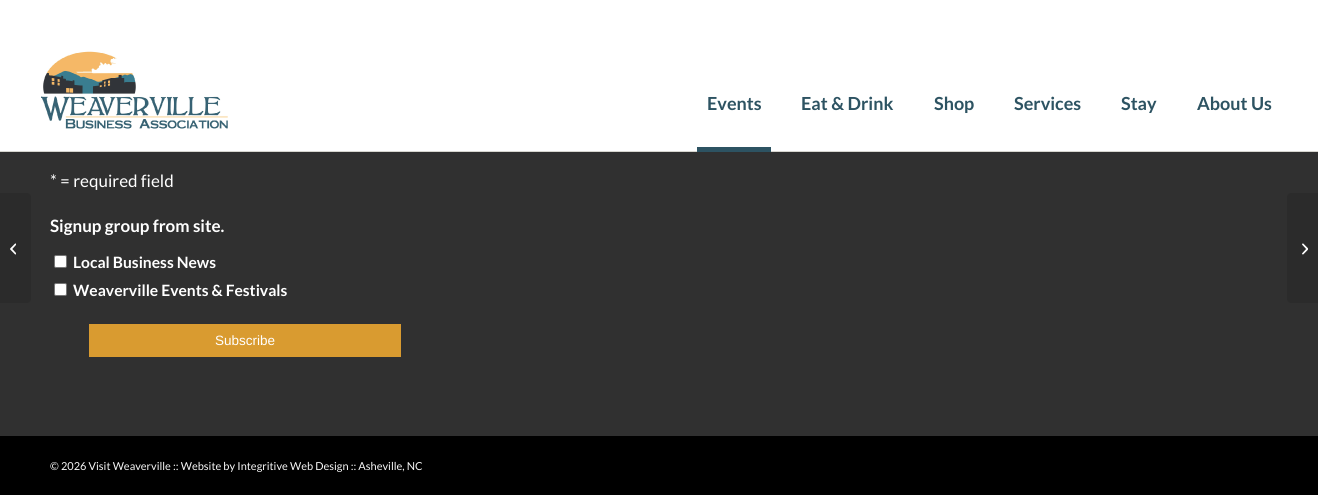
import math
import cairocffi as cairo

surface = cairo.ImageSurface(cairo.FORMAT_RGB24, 1318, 495)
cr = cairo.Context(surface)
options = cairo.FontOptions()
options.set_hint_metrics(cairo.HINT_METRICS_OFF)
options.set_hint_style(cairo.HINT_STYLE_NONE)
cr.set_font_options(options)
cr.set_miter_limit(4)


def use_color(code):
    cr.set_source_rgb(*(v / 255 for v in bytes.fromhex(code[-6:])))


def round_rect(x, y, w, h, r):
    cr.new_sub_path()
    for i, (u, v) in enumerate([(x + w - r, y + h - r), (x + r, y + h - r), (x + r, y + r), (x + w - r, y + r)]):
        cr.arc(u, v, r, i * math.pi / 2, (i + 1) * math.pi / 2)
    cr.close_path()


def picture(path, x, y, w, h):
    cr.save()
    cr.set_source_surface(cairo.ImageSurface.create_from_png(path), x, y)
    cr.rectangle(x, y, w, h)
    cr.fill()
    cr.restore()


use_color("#303030")
cr.paint()
use_color("#ffffff")
cr.rectangle(0, 0, 1318, 151)
cr.fill()
use_color("#d6d5cf")
cr.rectangle(0, 151, 1318, 1)
cr.fill()
picture("img1.png", 41, 51, 187, 78)
cr.select_font_face("Lato", cairo.FONT_SLANT_NORMAL, cairo.FONT_WEIGHT_BOLD)
cr.set_font_size(18)
use_color("#2d5362")
cr.move_to(707, 110)
cr.show_text("Events")
cr.rectangle(697, 147, 74, 5)
cr.fill()
cr.move_to(801, 110)
cr.show_text("Eat & Drink")
cr.move_to(934, 110)
cr.show_text("Shop")
cr.move_to(1014, 110)
cr.show_text("Services")
cr.move_to(1121, 110)
cr.show_text("Stay")
cr.move_to(1197, 110)
cr.show_text("About Us")
use_color("#2b2b2b")
cr.new_path()
cr.move_to(0, 193)
cr.line_to(27, 193)
cr.curve_to(29, 193, 31, 195, 31, 197)
cr.line_to(31, 299)
cr.curve_to(31, 301, 29, 303, 27, 303)
cr.line_to(0, 303)
cr.close_path()
cr.fill()
picture("img2.png", 10, 243, 6, 12)
cr.select_font_face("Lato")
cr.set_font_size(17)
use_color("#ffffff")
cr.move_to(50, 187)
cr.show_text("* = required field")
cr.select_font_face("Lato", cairo.FONT_SLANT_NORMAL, cairo.FONT_WEIGHT_BOLD)
cr.move_to(50, 232)
cr.show_text("Signup group from site.")
round_rect(54.5, 255.5, 12, 12, 1.5)
cr.fill_preserve()
use_color("#767676")
cr.set_line_width(1)
cr.stroke()
cr.set_font_size(15.6)
use_color("#ffffff")
cr.move_to(73, 268)
cr.show_text("Local Business News")
round_rect(54.5, 283.5, 12, 12, 1.5)
cr.fill_preserve()
use_color("#767676")
cr.stroke()
use_color("#ffffff")
cr.move_to(73, 296)
cr.show_text("Weaverville Events & Festivals")
use_color("#d99b30")
cr.rectangle(89, 324, 312, 33)
cr.fill()
cr.select_font_face("Liberation Sans")
cr.set_font_size(13.5)
use_color("#ffffff")
cr.move_to(215, 345)
cr.show_text("Subscribe")
use_color("#000000")
cr.rectangle(0, 436, 1318, 59)
cr.fill()
cr.select_font_face("Lato")
cr.set_font_size(11)
use_color("#f8f8f8")
cr.move_to(50, 470)
cr.show_text("© 2026 Visit Weaverville :: Website by Integritive Web Design :: Asheville, NC")
use_color("#2b2b2b")
cr.new_path()
cr.move_to(1291, 193)
cr.line_to(1318, 193)
cr.line_to(1318, 303)
cr.line_to(1291, 303)
cr.curve_to(1289, 303, 1287, 301, 1287, 299)
cr.line_to(1287, 197)
cr.curve_to(1287, 195, 1289, 193, 1291, 193)
cr.close_path()
cr.fill()
picture("img3.png", 1302, 243, 6, 12)
surface.write_to_png("result.png")
